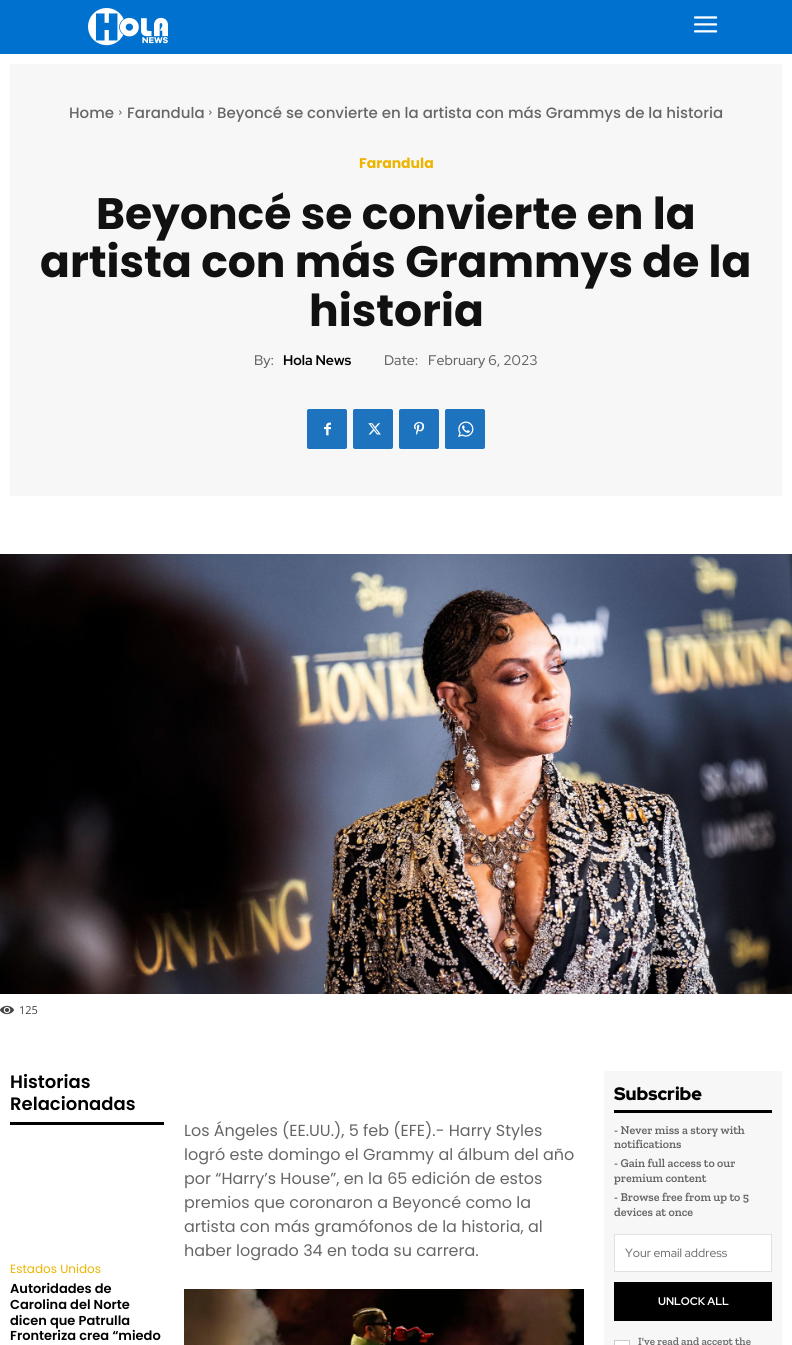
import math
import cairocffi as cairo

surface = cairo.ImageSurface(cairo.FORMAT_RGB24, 792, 1345)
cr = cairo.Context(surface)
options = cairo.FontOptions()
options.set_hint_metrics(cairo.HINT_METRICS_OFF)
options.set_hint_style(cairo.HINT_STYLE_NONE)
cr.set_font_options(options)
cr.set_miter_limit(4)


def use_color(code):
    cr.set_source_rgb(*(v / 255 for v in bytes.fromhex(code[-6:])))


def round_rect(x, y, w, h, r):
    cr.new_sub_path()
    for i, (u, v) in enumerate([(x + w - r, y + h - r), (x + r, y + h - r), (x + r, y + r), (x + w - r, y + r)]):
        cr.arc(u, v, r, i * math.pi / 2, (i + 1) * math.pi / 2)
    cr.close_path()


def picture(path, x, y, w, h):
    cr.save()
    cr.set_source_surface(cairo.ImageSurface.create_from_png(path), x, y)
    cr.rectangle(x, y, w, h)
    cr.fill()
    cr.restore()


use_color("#ffffff")
cr.paint()
use_color("#0071ce")
cr.rectangle(0, 0, 792, 54)
cr.fill()
picture("img1.png", 88, 8, 80, 38)
picture("img2.png", 694, 16, 24, 17)
use_color("#f7f7f7")
cr.rectangle(10, 64, 772, 432)
cr.fill()
cr.select_font_face("Poppins Medium")
cr.set_font_size(15)
use_color("#666666")
cr.move_to(69, 118)
cr.show_text("Home")
picture("img3.png", 119, 110, 3, 5)
cr.move_to(127, 118)
cr.show_text("Farandula")
picture("img3.png", 209, 110, 3, 5)
cr.move_to(217, 118)
cr.show_text("Beyoncé se convierte en la artista con más Grammys de la historia")
cr.select_font_face("Poppins", cairo.FONT_SLANT_NORMAL, cairo.FONT_WEIGHT_BOLD)
cr.set_font_size(14)
use_color("#edb500")
cr.move_to(359, 168)
cr.show_text("Farandula")
cr.set_font_size(44)
use_color("#111111")
cr.move_to(96, 229)
cr.show_text("Beyoncé se convierte en la")
cr.move_to(40, 277)
cr.show_text("artista con más Grammys de la")
cr.move_to(309, 326)
cr.show_text("historia")
cr.select_font_face("Red Hat Display Medium")
cr.set_font_size(14)
use_color("#666666")
cr.move_to(254, 365)
cr.show_text("By:")
cr.select_font_face("Red Hat Display", cairo.FONT_SLANT_NORMAL, cairo.FONT_WEIGHT_BOLD)
use_color("#000000")
cr.move_to(283, 365)
cr.show_text("Hola News")
cr.select_font_face("Red Hat Display Medium")
use_color("#666666")
cr.move_to(384, 365)
cr.show_text("Date:")
cr.move_to(428, 365)
cr.show_text("February 6, 2023")
use_color("#1e73be")
round_rect(307, 409, 40, 40, 2)
cr.fill()
picture("img4.png", 324, 422, 7, 14)
round_rect(353, 409, 40, 40, 2)
cr.fill()
picture("img5.png", 368, 423, 13, 12)
round_rect(399, 409, 40, 40, 2)
cr.fill()
picture("img6.png", 414, 421, 11, 14)
round_rect(445, 409, 40, 40, 2)
cr.fill()
picture("img7.png", 458, 421, 16, 16)
picture("img8.png", 0, 554, 792, 440)
picture("img9.png", 0, 1005, 14, 10)
cr.select_font_face("Open Sans")
cr.set_font_size(11)
use_color("#444444")
cr.move_to(19, 1014)
cr.show_text("125")
use_color("#000000")
cr.rectangle(10, 1122, 154, 3)
cr.fill()
cr.select_font_face("Poppins SemiBold")
cr.set_font_size(18)
cr.move_to(10, 1088)
cr.show_text("Historias")
cr.move_to(10, 1110)
cr.show_text("Relacionadas")
cr.select_font_face("Poppins")
cr.set_font_size(12)
use_color("#edb500")
cr.move_to(10, 1273)
cr.show_text("Estados Unidos")
cr.select_font_face("Poppins SemiBold")
cr.set_font_size(13)
use_color("#000000")
cr.move_to(10, 1293)
cr.show_text("Autoridades de")
cr.move_to(10, 1309)
cr.show_text("Carolina del Norte")
cr.move_to(10, 1325)
cr.show_text("dicen que Patrulla")
cr.move_to(10, 1340)
cr.show_text("Fronteriza crea “miedo")
cr.select_font_face("Poppins")
cr.set_font_size(16)
use_color("#666666")
cr.move_to(184, 1136)
cr.show_text("Los Ángeles (EE.UU.), 5 feb (EFE).- Harry Styles")
cr.move_to(184, 1160)
cr.show_text("logró este domingo el Grammy al álbum del año")
cr.move_to(184, 1184)
cr.show_text("por “Harry’s House”, en la 65 edición de estos")
cr.move_to(184, 1208)
cr.show_text("premios que coronaron a Beyoncé como la")
cr.move_to(184, 1232)
cr.show_text("artista con más gramófonos de la historia, al")
cr.move_to(184, 1256)
cr.show_text("haber logrado 34 en toda su carrera.")
picture("img10.png", 184, 1289, 400, 56)
use_color("#f7f7f7")
cr.rectangle(604, 1071, 178, 274)
cr.fill()
use_color("#000000")
cr.rectangle(614, 1110, 158, 3)
cr.fill()
cr.select_font_face("Red Hat Display Black")
cr.set_font_size(18)
cr.move_to(614, 1100)
cr.show_text("Subscribe")
cr.select_font_face("Zilla Slab SemiBold")
cr.set_font_size(12)
use_color("#666666")
cr.move_to(614, 1134)
cr.show_text("- Never miss a story with")
cr.move_to(614, 1148)
cr.show_text("notifications")
cr.move_to(614, 1167)
cr.show_text("- Gain full access to our")
cr.move_to(614, 1182)
cr.show_text("premium content")
cr.move_to(614, 1201)
cr.show_text("- Browse free from up to 5")
cr.move_to(614, 1216)
cr.show_text("devices at once")
use_color("#ffffff")
cr.rectangle(614.5, 1234.5, 157, 37)
cr.fill_preserve()
use_color("#e1e1e1")
cr.set_line_width(1)
cr.stroke()
cr.select_font_face("Red Hat Display Medium")
use_color("#757575")
cr.move_to(625, 1257)
cr.show_text("Your email address")
use_color("#000000")
cr.rectangle(614, 1282, 158, 39)
cr.fill()
cr.select_font_face("Red Hat Display", cairo.FONT_SLANT_NORMAL, cairo.FONT_WEIGHT_BOLD)
cr.set_font_size(11)
use_color("#ffffff")
cr.move_to(658, 1305)
cr.show_text("UNLOCK ALL")
cr.rectangle(614.5, 1340.5, 15, 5)
cr.fill_preserve()
use_color("#cccccc")
cr.stroke()
cr.select_font_face("Zilla Slab SemiBold")
use_color("#6d6d6d")
cr.move_to(638, 1345)
cr.show_text("I've read and accept the")
surface.write_to_png("result.png")
